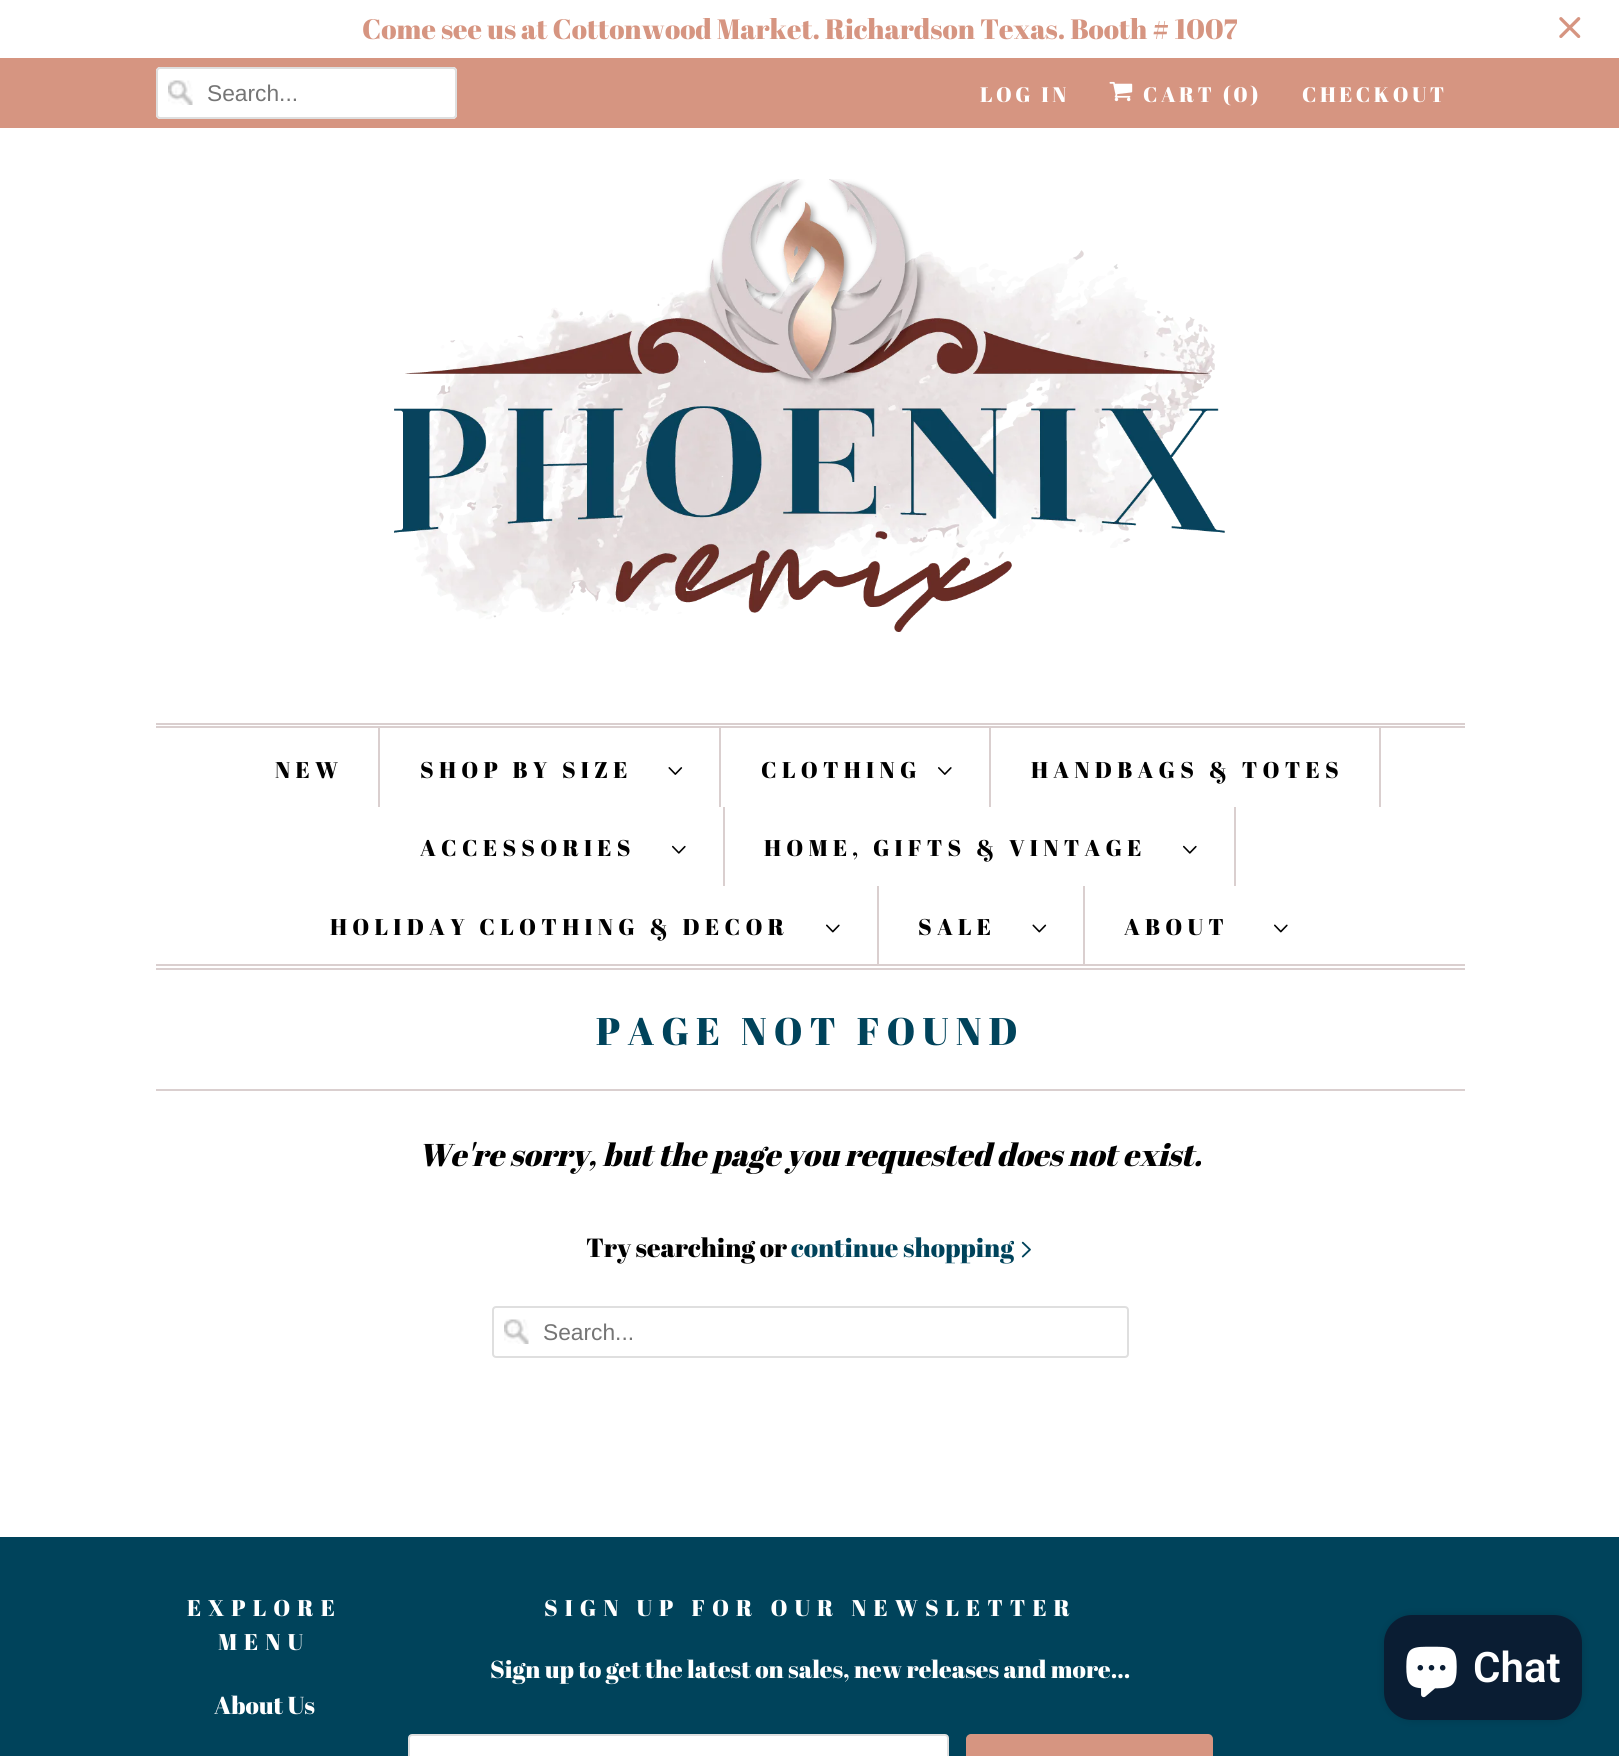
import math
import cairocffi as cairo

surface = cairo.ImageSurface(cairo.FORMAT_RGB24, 1619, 1756)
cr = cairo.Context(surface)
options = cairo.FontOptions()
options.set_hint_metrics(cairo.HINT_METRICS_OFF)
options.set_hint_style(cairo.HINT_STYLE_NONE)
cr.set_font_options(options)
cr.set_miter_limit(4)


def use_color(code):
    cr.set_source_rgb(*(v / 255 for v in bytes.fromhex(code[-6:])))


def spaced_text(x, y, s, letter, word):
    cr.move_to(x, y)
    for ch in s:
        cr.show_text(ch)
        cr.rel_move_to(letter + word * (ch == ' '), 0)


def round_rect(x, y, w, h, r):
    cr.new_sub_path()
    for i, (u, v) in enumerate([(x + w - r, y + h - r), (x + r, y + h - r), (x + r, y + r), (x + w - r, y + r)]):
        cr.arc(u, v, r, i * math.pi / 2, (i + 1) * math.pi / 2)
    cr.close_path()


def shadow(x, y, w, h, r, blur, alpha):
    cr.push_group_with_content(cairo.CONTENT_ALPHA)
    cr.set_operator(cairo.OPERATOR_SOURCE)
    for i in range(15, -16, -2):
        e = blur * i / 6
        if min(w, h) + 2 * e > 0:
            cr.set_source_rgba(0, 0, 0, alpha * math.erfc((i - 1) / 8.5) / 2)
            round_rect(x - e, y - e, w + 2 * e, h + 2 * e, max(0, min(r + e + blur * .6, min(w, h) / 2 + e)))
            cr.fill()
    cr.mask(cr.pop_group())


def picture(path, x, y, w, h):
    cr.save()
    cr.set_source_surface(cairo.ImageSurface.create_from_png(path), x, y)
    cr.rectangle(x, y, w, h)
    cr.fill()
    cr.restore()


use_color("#ffffff")
cr.paint()
cr.select_font_face("Abril Fatface")
cr.set_font_size(28)
use_color("#d69581")
cr.move_to(362, 39)
cr.show_text("Come see us at Cottonwood Market. Richardson Texas. Booth # 1007")
picture("img1.png", 1559, 17, 22, 21)
cr.rectangle(0, 58, 1619, 70)
cr.fill()
use_color("#ffffff")
round_rect(156, 67, 301, 52, 4)
cr.fill()
picture("img2.png", 168, 80, 25, 25)
round_rect(157, 68, 299, 50, 3)
use_color("#dfdfdf")
cr.stroke()
cr.select_font_face("Liberation Sans")
cr.set_font_size(22.75)
use_color("#757575")
cr.move_to(207, 101)
cr.show_text("Search...")
cr.select_font_face("Abril Fatface")
cr.set_font_size(21)
use_color("#ffffff")
spaced_text(980, 102, "LOG IN", 3.5, 0)
picture("img3.png", 1109, 81, 24, 21)
spaced_text(1143, 102, "CART (0)", 3.5, 0)
spaced_text(1302, 102, "CHECKOUT", 3.5, 0)
picture("img4.png", 394, 179, 831, 453)
use_color("#dacfcf")
cr.rectangle(156, 723, 1309, 2)
cr.fill()
cr.rectangle(156, 726, 1309, 2)
cr.fill()
cr.rectangle(156, 964, 1309, 2)
cr.fill()
cr.rectangle(156, 968, 1309, 2)
cr.fill()
cr.rectangle(378, 728, 2, 79)
cr.fill()
cr.set_font_size(22.75)
use_color("#000000")
spaced_text(275, 778, "NEW", 5.25, 0)
use_color("#dacfcf")
cr.rectangle(719, 728, 2, 79)
cr.fill()
use_color("#000000")
spaced_text(420, 778, "SHOP BY SIZE", 5.25, 0)
picture("img5.png", 668, 767, 15, 8)
use_color("#dacfcf")
cr.rectangle(989, 728, 2, 79)
cr.fill()
use_color("#000000")
spaced_text(761, 778, "CLOTHING", 5.25, 0)
picture("img6.png", 938, 767, 14, 8)
use_color("#dacfcf")
cr.rectangle(1379, 728, 2, 79)
cr.fill()
use_color("#000000")
spaced_text(1031, 778, "HANDBAGS & TOTES", 5.25, 0)
use_color("#dacfcf")
cr.rectangle(723, 807, 2, 79)
cr.fill()
use_color("#000000")
spaced_text(420, 856, "ACCESSORIES", 5.25, 0)
picture("img7.png", 672, 845, 14, 9)
use_color("#dacfcf")
cr.rectangle(1234, 807, 2, 79)
cr.fill()
use_color("#000000")
spaced_text(764, 856, "HOME, GIFTS & VINTAGE", 5.25, 0)
picture("img7.png", 1183, 845, 14, 9)
use_color("#dacfcf")
cr.rectangle(877, 886, 2, 78)
cr.fill()
use_color("#000000")
spaced_text(330, 935, "HOLIDAY CLOTHING & DECOR", 5.25, 0)
picture("img8.png", 826, 924, 14, 9)
use_color("#dacfcf")
cr.rectangle(1083, 886, 2, 78)
cr.fill()
use_color("#000000")
spaced_text(918, 935, "SALE", 5.25, 0)
picture("img9.png", 1032, 924, 15, 9)
spaced_text(1124, 935, "ABOUT", 5.25, 0)
picture("img8.png", 1274, 924, 14, 9)
use_color("#dacfcf")
cr.rectangle(156, 1089, 1309, 2)
cr.fill()
cr.set_font_size(38.5)
use_color("#00435b")
spaced_text(596, 1045, "PAGE NOT FOUND", 7, 0)
cr.select_font_face("Abril Fatface", cairo.FONT_SLANT_ITALIC)
cr.set_font_size(31.5)
use_color("#000000")
cr.move_to(418, 1166)
cr.show_text("We're sorry, but the page you requested does not exist.")
cr.select_font_face("Abril Fatface")
cr.set_font_size(26.25)
cr.move_to(586, 1257)
cr.show_text("Try searching or")
use_color("#00435b")
cr.move_to(791, 1257)
cr.show_text("continue shopping")
picture("img10.png", 1021, 1241, 10, 17)
picture("img11.png", 504, 1319, 25, 25)
round_rect(493, 1307, 635, 50, 3)
use_color("#dfdfdf")
cr.stroke()
cr.select_font_face("Liberation Sans")
cr.set_font_size(22.75)
use_color("#757575")
cr.move_to(543, 1340)
cr.show_text("Search...")
use_color("#00435b")
cr.rectangle(0, 1537, 1619, 219)
cr.fill()
cr.select_font_face("Abril Fatface")
use_color("#ffffff")
spaced_text(187, 1616, "EXPLORE", 7, 0)
spaced_text(218, 1650, "MENU", 7, 0)
cr.set_font_size(24.5)
cr.move_to(214, 1714)
cr.show_text("About Us")
cr.set_font_size(22.75)
spaced_text(544, 1616, "SIGN UP FOR OUR NEWSLETTER", 7, 0)
cr.set_font_size(24.5)
cr.move_to(490, 1678)
cr.show_text("Sign up to get the latest on sales, new releases and more…")
round_rect(409, 1735, 539, 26, 3)
cr.fill_preserve()
use_color("#dfdfdf")
cr.stroke()
use_color("#d69581")
round_rect(967, 1735, 245, 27, 4)
cr.fill_preserve()
cr.stroke()
use_color("#000000")
shadow(1384, 1615, 198, 105, 28, 4.5, 0.15)
use_color("#0a1d33")
round_rect(1384, 1615, 198, 105, 28)
cr.fill()
picture("img12.png", 1406, 1646, 51, 52)
cr.select_font_face("Roboto SemiBold")
cr.set_font_size(42)
use_color("#ffffff")
cr.move_to(1473, 1682)
cr.show_text("Chat")
surface.write_to_png("result.png")
